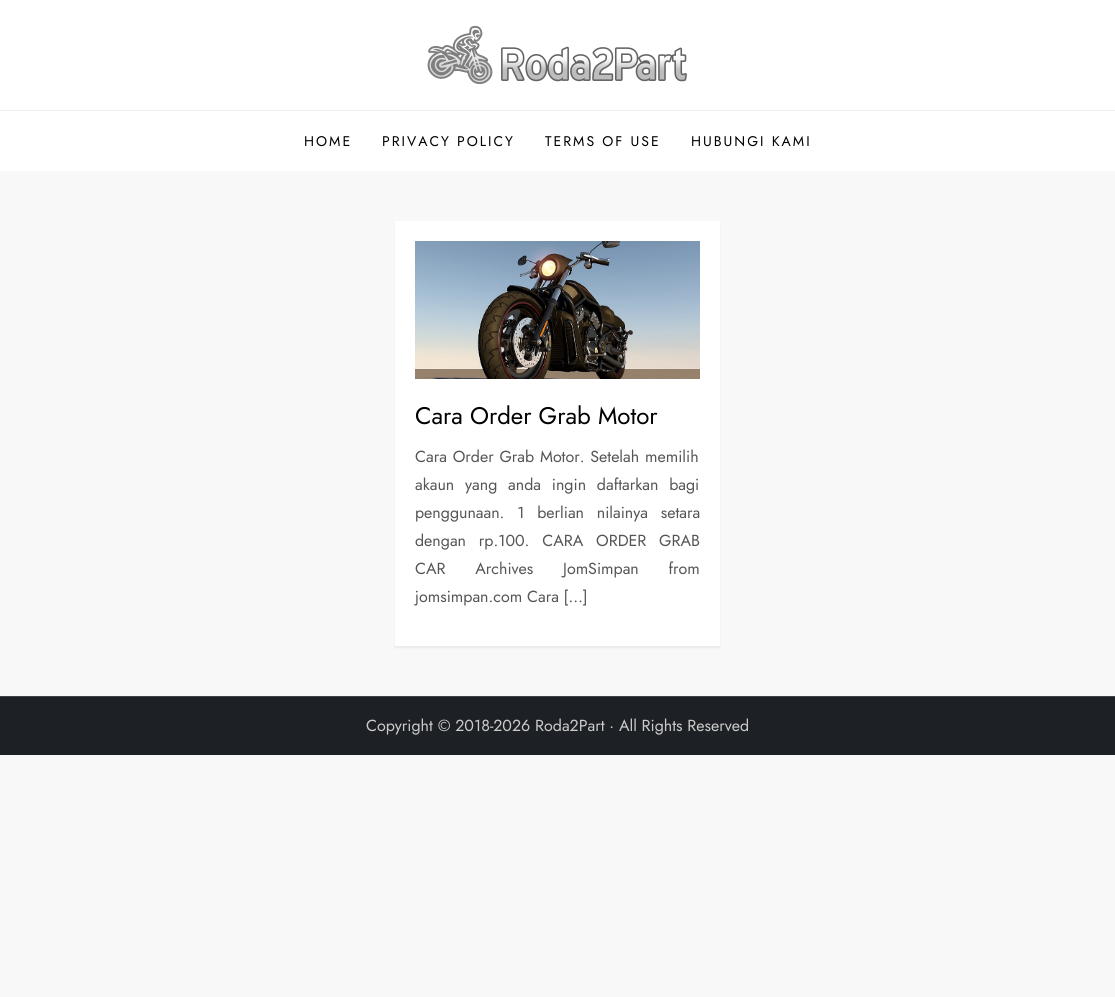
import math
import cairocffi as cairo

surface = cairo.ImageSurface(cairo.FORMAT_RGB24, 1115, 997)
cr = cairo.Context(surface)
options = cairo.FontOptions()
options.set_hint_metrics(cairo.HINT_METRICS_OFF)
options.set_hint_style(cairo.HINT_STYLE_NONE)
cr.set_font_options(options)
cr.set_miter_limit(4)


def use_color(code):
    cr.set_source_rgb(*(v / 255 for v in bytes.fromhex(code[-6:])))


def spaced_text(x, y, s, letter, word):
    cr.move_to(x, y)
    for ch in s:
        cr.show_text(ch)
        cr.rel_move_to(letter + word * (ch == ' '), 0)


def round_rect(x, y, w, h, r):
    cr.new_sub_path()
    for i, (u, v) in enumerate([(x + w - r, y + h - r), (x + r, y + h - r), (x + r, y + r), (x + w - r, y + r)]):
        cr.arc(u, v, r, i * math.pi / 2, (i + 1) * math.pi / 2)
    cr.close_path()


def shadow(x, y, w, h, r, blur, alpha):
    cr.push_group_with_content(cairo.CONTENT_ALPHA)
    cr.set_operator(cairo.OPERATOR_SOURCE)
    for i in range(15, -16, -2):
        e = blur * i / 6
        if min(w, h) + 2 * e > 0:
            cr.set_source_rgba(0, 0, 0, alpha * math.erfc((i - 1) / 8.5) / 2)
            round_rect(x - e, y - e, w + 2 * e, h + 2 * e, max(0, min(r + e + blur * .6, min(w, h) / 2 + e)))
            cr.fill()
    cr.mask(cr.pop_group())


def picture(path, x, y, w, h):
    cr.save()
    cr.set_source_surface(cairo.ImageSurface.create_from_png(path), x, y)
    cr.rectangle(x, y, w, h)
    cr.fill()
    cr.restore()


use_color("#f8f8f8")
cr.paint()
use_color("#ffffff")
cr.rectangle(0, 0, 1115, 171)
cr.fill()
picture("img1.png", 427, 25, 260, 60)
use_color("#eeeeee")
cr.rectangle(0, 110, 1115, 1)
cr.fill()
cr.select_font_face("Jost")
cr.set_font_size(14)
use_color("#000000")
spaced_text(304, 146, "HOME", 2, 0)
spaced_text(382, 146, "PRIVACY POLICY", 2, 0)
spaced_text(545, 146, "TERMS OF USE", 2, 0)
spaced_text(691, 146, "HUBUNGI KAMI", 2, 0)
use_color("#000000")
shadow(395, 223, 325, 425, 0, 1, 0.06)
use_color("#ffffff")
cr.rectangle(395, 221, 325, 425)
cr.fill()
picture("img2.png", 415, 241, 285, 138)
cr.set_font_size(24)
use_color("#000000")
cr.move_to(415, 424)
cr.show_text("Cara Order Grab Motor")
cr.set_font_size(16)
use_color("#555555")
spaced_text(415, 462, "Cara Order Grab Motor. Setelah memilih", 0, 1)
spaced_text(415, 490, "akaun yang anda ingin daftarkan bagi", 0, 6)
spaced_text(415, 518, "penggunaan. 1 berlian nilainya setara", 0, 8)
spaced_text(415, 546, "dengan rp.100. CARA ORDER GRAB", 0, 8)
spaced_text(415, 574, "CAR Archives JomSimpan from", 0, 25)
cr.move_to(415, 602)
cr.show_text("jomsimpan.com Cara […]")
use_color("#1d2024")
cr.rectangle(0, 697, 1115, 58)
cr.fill()
use_color("#3f4145")
cr.rectangle(0, 696, 1115, 1)
cr.fill()
use_color("#cccccc")
cr.move_to(366, 731)
cr.show_text("Copyright © 2018-2026 Roda2Part · All Rights Reserved")
surface.write_to_png("result.png")
